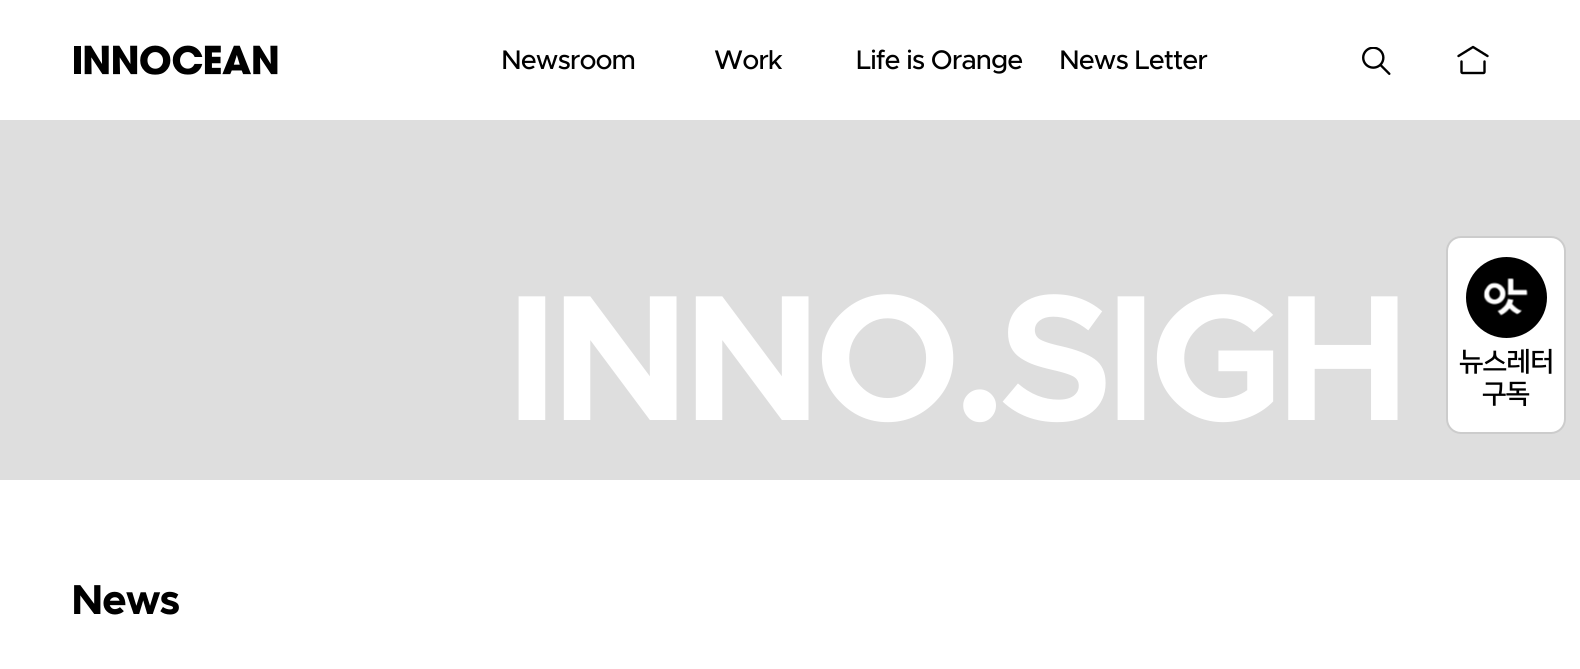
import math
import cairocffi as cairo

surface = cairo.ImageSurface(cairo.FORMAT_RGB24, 1580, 669)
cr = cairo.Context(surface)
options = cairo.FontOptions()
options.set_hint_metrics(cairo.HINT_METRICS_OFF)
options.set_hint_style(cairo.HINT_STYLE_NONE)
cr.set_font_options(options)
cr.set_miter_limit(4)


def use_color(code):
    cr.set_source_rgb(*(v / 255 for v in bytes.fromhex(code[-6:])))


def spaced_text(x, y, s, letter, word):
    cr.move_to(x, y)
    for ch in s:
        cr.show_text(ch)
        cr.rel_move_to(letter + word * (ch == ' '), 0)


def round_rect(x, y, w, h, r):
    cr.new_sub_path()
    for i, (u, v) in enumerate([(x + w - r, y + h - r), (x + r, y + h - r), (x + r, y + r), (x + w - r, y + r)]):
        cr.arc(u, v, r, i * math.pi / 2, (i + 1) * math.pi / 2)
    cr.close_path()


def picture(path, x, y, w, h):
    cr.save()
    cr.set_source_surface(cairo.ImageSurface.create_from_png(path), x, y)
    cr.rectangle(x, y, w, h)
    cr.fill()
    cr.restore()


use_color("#ffffff")
cr.paint()
picture("img1.png", 74, 45, 204, 30)
cr.select_font_face("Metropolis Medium")
cr.set_font_size(27)
use_color("#000000")
spaced_text(501, 69, "Newsroom", -1, 0)
spaced_text(714, 69, "Work", -1, 0)
spaced_text(856, 69, "Life is Orange", -1, 0)
spaced_text(1059, 69, "News Letter", -1, 0)
picture("img2.png", 1362, 47, 29, 28)
cr.new_path()
cr.move_to(1458.5, 56)
cr.line_to(1473, 47)
cr.line_to(1487.5, 56)
cr.move_to(1484.5, 61.5)
cr.line_to(1484.5, 72)
cr.curve_to(1484.5, 72.5, 1484, 73, 1483.5, 73)
cr.line_to(1462.5, 73)
cr.curve_to(1462, 73, 1461.5, 72.5, 1461.5, 72)
cr.line_to(1461.5, 61.5)
cr.set_line_width(2.4)
cr.set_line_cap(cairo.LINE_CAP_ROUND)
cr.set_line_join(cairo.LINE_JOIN_ROUND)
cr.stroke()
use_color("#dedede")
cr.rectangle(0, 120, 1580, 360)
cr.fill()
cr.select_font_face("Metropolis", cairo.FONT_SLANT_NORMAL, cairo.FONT_WEIGHT_BOLD)
cr.set_font_size(180)
use_color("#ffffff")
spaced_text(506, 420, "INNO.SIGH", -7.25, 0)
cr.set_font_size(42)
use_color("#000000")
spaced_text(71, 614, "News", -1.5, 0)
use_color("#ffffff")
round_rect(1447, 237, 118, 196, 14)
cr.fill_preserve()
use_color("#cccccc")
cr.set_line_width(2)
cr.set_line_cap(cairo.LINE_CAP_BUTT)
cr.set_line_join(cairo.LINE_JOIN_MITER)
cr.stroke()
use_color("#000000")
cr.arc(1506.5, 297.5, 40.5, 0, 2 * math.pi)
cr.fill()
picture("img3.png", 1483, 278, 45, 38)
cr.select_font_face("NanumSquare", cairo.FONT_SLANT_NORMAL, cairo.FONT_WEIGHT_BOLD)
cr.set_font_size(27)
spaced_text(1459, 370, "뉴스레터", -1, 0)
spaced_text(1482, 402, "구독", -1, 0)
surface.write_to_png("result.png")
